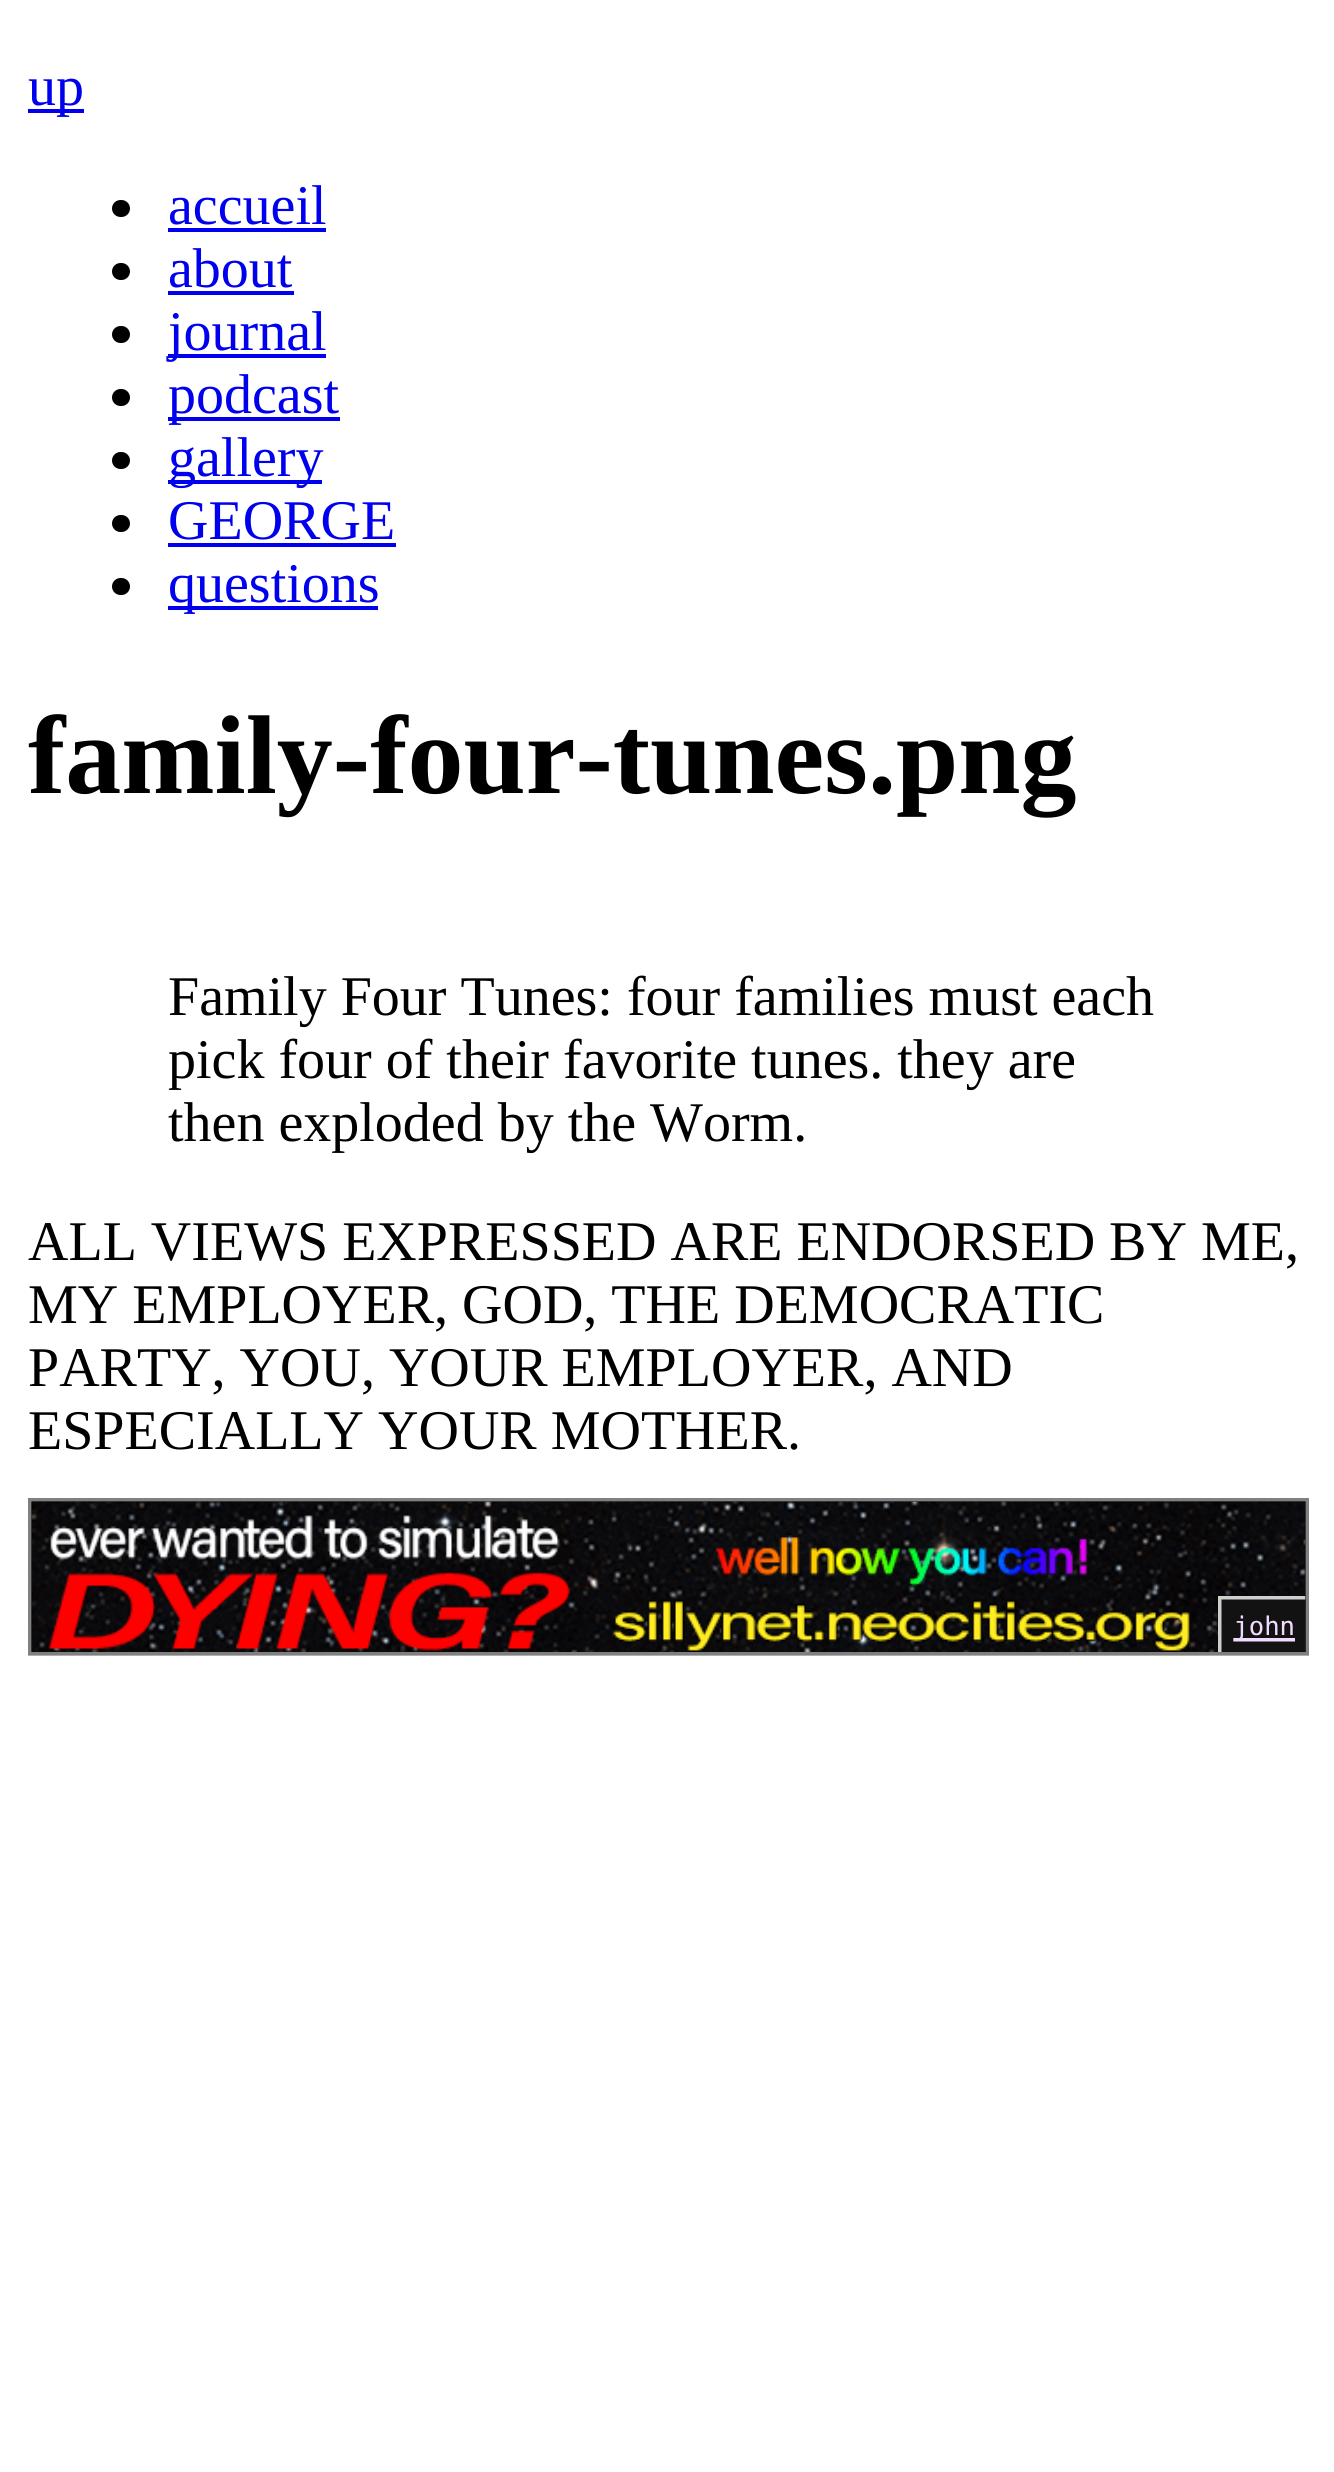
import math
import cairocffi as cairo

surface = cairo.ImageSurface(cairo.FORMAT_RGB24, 1334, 2472)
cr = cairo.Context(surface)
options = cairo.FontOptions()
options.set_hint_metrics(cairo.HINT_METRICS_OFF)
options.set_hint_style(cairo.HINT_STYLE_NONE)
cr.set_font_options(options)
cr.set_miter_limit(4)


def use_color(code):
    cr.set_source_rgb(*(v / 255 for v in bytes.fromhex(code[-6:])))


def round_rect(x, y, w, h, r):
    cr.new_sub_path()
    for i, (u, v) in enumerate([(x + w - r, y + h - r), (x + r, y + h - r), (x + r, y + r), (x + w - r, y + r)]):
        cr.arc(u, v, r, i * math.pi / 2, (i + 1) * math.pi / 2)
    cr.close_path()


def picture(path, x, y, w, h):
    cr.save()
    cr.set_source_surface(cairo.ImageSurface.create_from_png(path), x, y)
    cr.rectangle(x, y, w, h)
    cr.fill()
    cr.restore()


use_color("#ffffff")
cr.paint()
use_color("#0000ee")
cr.rectangle(28, 109, 56, 4)
cr.fill()
cr.select_font_face("Liberation Serif")
cr.set_font_size(56)
cr.move_to(28, 105)
cr.show_text("up")
use_color("#000000")
round_rect(112, 200, 18, 17, 8.5)
cr.fill()
use_color("#0000ee")
cr.move_to(168, 224)
cr.show_text("accueil")
cr.rectangle(168, 228, 158, 4)
cr.fill()
use_color("#000000")
round_rect(112, 263, 18, 17, 8.5)
cr.fill()
use_color("#0000ee")
cr.move_to(168, 287)
cr.show_text("about")
cr.rectangle(168, 291, 126, 4)
cr.fill()
use_color("#000000")
round_rect(112, 326, 18, 17, 8.5)
cr.fill()
use_color("#0000ee")
cr.rectangle(168, 354, 158, 4)
cr.fill()
cr.move_to(168, 350)
cr.show_text("journal")
use_color("#000000")
round_rect(112, 389, 18, 17, 8.5)
cr.fill()
use_color("#0000ee")
cr.rectangle(168, 417, 172, 4)
cr.fill()
cr.move_to(168, 413)
cr.show_text("podcast")
use_color("#000000")
round_rect(112, 452, 18, 17, 8.5)
cr.fill()
use_color("#0000ee")
cr.rectangle(168, 480, 154, 4)
cr.fill()
cr.move_to(168, 476)
cr.show_text("gallery")
use_color("#000000")
round_rect(112, 515, 18, 17, 8.5)
cr.fill()
use_color("#0000ee")
cr.move_to(168, 539)
cr.show_text("GEORGE")
cr.rectangle(168, 543, 228, 4)
cr.fill()
use_color("#000000")
round_rect(112, 578, 18, 17, 8.5)
cr.fill()
use_color("#0000ee")
cr.rectangle(168, 606, 210, 4)
cr.fill()
cr.move_to(168, 602)
cr.show_text("questions")
cr.select_font_face("Liberation Serif", cairo.FONT_SLANT_NORMAL, cairo.FONT_WEIGHT_BOLD)
cr.set_font_size(112)
use_color("#000000")
cr.move_to(28, 793)
cr.show_text("family-four-tunes.png")
cr.select_font_face("Liberation Serif")
cr.set_font_size(56)
cr.move_to(168, 1015)
cr.show_text("Family Four Tunes: four families must each")
cr.move_to(168, 1078)
cr.show_text("pick four of their favorite tunes. they are")
cr.move_to(168, 1141)
cr.show_text("then exploded by the Worm.")
cr.move_to(28, 1260)
cr.show_text("ALL VIEWS EXPRESSED ARE ENDORSED BY ME,")
cr.move_to(28, 1323)
cr.show_text("MY EMPLOYER, GOD, THE DEMOCRATIC")
cr.move_to(28, 1386)
cr.show_text("PARTY, YOU, YOUR EMPLOYER, AND")
cr.move_to(28, 1449)
cr.show_text("ESPECIALLY YOUR MOTHER.")
picture("img1.png", 28, 1498, 1281, 158)
surface.write_to_png("result.png")
